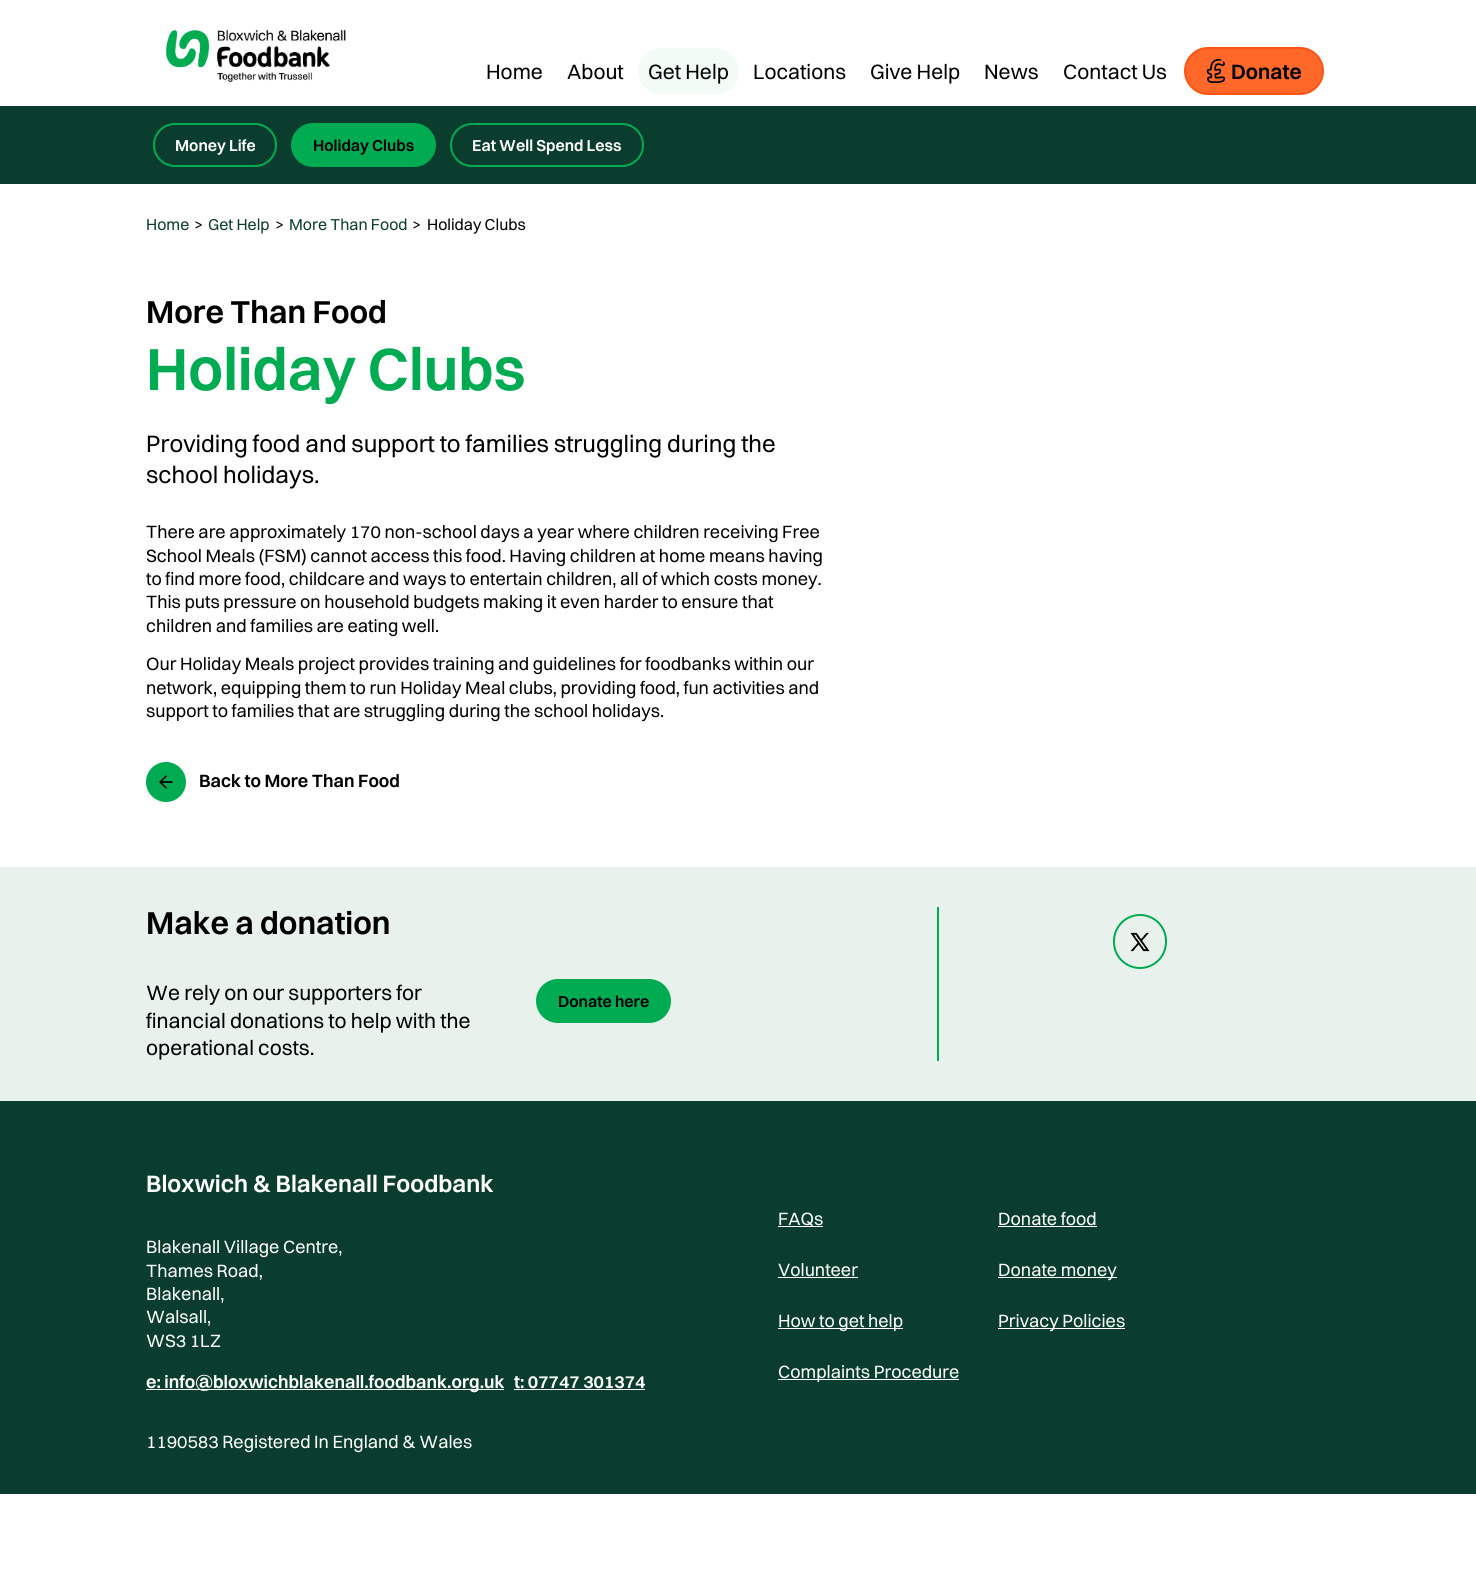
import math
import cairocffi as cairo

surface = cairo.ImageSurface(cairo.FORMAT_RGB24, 1476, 1572)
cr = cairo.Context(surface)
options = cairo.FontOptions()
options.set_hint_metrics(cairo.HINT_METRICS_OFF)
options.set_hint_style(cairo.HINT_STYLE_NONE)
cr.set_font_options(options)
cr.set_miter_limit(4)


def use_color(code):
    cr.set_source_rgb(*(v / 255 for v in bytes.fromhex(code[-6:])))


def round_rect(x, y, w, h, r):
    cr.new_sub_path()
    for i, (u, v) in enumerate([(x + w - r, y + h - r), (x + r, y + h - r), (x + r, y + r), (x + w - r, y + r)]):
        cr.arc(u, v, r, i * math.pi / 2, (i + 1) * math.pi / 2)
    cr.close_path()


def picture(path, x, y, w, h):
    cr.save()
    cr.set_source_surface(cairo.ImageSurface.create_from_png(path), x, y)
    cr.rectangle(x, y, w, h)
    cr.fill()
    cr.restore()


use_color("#ffffff")
cr.paint()
picture("img1.png", 165, 29, 181, 54)
cr.select_font_face("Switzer")
cr.set_font_size(21)
use_color("#000000")
cr.move_to(486, 79)
cr.show_text("Home")
cr.move_to(567, 79)
cr.show_text("About")
use_color("#f2fbf6")
round_rect(638, 48, 101, 46, 23)
cr.fill()
use_color("#000000")
cr.move_to(648, 79)
cr.show_text("Get Help")
cr.move_to(753, 79)
cr.show_text("Locations")
cr.move_to(870, 79)
cr.show_text("Give Help")
cr.move_to(984, 79)
cr.show_text("News")
cr.move_to(1063, 79)
cr.show_text("Contact Us")
use_color("#ff6828")
round_rect(1185, 48, 138, 46, 23)
cr.fill_preserve()
use_color("#ff5414")
cr.stroke()
picture("img2.png", 1206, 59, 20, 24)
cr.select_font_face("Switzer SemiBold")
use_color("#000000")
cr.move_to(1231, 79)
cr.show_text("Donate")
use_color("#0a3d2e")
cr.rectangle(0, 106, 1476, 78)
cr.fill()
round_rect(154, 124, 122, 42, 21)
use_color("#00ab52")
cr.stroke()
cr.set_font_size(16)
use_color("#ffffff")
cr.move_to(175, 151)
cr.show_text("Money Life")
use_color("#00ab52")
round_rect(292, 124, 143, 42, 21)
cr.fill_preserve()
cr.stroke()
use_color("#000000")
cr.move_to(313, 151)
cr.show_text("Holiday Clubs")
round_rect(451, 124, 192, 42, 21)
use_color("#00ab52")
cr.stroke()
use_color("#ffffff")
cr.move_to(472, 151)
cr.show_text("Eat Well Spend Less")
cr.select_font_face("Switzer")
use_color("#0a3d2e")
cr.move_to(146, 230)
cr.show_text("Home")
use_color("#000000")
cr.move_to(194, 230)
cr.show_text(">")
use_color("#0a3d2e")
cr.move_to(208, 230)
cr.show_text("Get Help")
use_color("#000000")
cr.move_to(275, 230)
cr.show_text(">")
use_color("#0a3d2e")
cr.move_to(289, 230)
cr.show_text("More Than Food")
use_color("#000000")
cr.move_to(412, 230)
cr.show_text(">")
cr.move_to(427, 230)
cr.show_text("Holiday Clubs")
cr.select_font_face("Switzer SemiBold")
cr.set_font_size(32)
cr.move_to(146, 323)
cr.show_text("More Than Food")
cr.set_font_size(60)
use_color("#00ab52")
cr.move_to(146, 390)
cr.show_text("Holiday Clubs")
cr.select_font_face("Switzer")
cr.set_font_size(24)
use_color("#000000")
cr.move_to(146, 452)
cr.show_text("Providing food and support to families struggling during the")
cr.move_to(146, 483)
cr.show_text("school holidays.")
cr.set_font_size(18)
cr.move_to(146, 538)
cr.show_text("There are approximately 170 non-school days a year where children receiving Free")
cr.move_to(146, 562)
cr.show_text("School Meals (FSM) cannot access this food. Having children at home means having")
cr.move_to(146, 585)
cr.show_text("to find more food, childcare and ways to entertain children, all of which costs money.")
cr.move_to(146, 608)
cr.show_text("This puts pressure on household budgets making it even harder to ensure that")
cr.move_to(146, 632)
cr.show_text("children and families are eating well.")
cr.move_to(146, 670)
cr.show_text("Our Holiday Meals project provides training and guidelines for foodbanks within our")
cr.move_to(146, 694)
cr.show_text("network, equipping them to run Holiday Meal clubs, providing food, fun activities and")
cr.move_to(146, 717)
cr.show_text("support to families that are struggling during the school holidays.")
use_color("#00ab52")
cr.new_path()
cr.arc(166, 782, 19, 0, 2 * math.pi)
cr.fill_preserve()
cr.stroke()
picture("img3.png", 159, 775, 14, 14)
cr.select_font_face("Switzer SemiBold")
use_color("#000000")
cr.move_to(199, 787)
cr.show_text("Back to More Than Food")
use_color("#e8f1ec")
cr.rectangle(0, 867, 1476, 234)
cr.fill()
use_color("#00ab52")
cr.rectangle(937, 907, 2, 154)
cr.fill()
cr.set_font_size(32)
use_color("#000000")
cr.move_to(146, 934)
cr.show_text("Make a donation")
cr.select_font_face("Switzer")
cr.set_font_size(21)
cr.move_to(146, 1000)
cr.show_text("We rely on our supporters for")
cr.move_to(146, 1028)
cr.show_text("financial donations to help with the")
cr.move_to(146, 1055)
cr.show_text("operational costs.")
use_color("#00ab52")
round_rect(537, 980, 133, 42, 21)
cr.fill_preserve()
cr.stroke()
cr.select_font_face("Switzer SemiBold")
cr.set_font_size(16)
use_color("#000000")
cr.move_to(558, 1007)
cr.show_text("Donate here")
round_rect(1114, 915, 52, 53, 26)
use_color("#00ab52")
cr.stroke()
picture("img4.png", 1130, 932, 20, 20)
use_color("#0a3d2e")
cr.rectangle(0, 1101, 1476, 393)
cr.fill()
cr.set_font_size(24)
use_color("#ffffff")
cr.move_to(146, 1192)
cr.show_text("Bloxwich & Blakenall Foodbank")
cr.select_font_face("Switzer")
cr.set_font_size(18)
cr.move_to(146, 1253)
cr.show_text("Blakenall Village Centre,")
cr.move_to(146, 1277)
cr.show_text("Thames Road,")
cr.move_to(146, 1300)
cr.show_text("Blakenall,")
cr.move_to(146, 1323)
cr.show_text("Walsall,")
cr.move_to(146, 1347)
cr.show_text("WS3 1LZ")
cr.rectangle(146, 1389, 358, 1)
cr.fill()
cr.select_font_face("Switzer SemiBold")
cr.move_to(146, 1388)
cr.show_text("e: info@bloxwichblakenall.foodbank.org.uk")
cr.move_to(514, 1388)
cr.show_text("t: 07747 301374")
cr.rectangle(514, 1389, 131, 1)
cr.fill()
cr.rectangle(778, 1226, 45, 1)
cr.fill()
cr.select_font_face("Switzer")
cr.move_to(778, 1225)
cr.show_text("FAQs")
cr.move_to(998, 1225)
cr.show_text("Donate food")
cr.rectangle(998, 1226, 99, 1)
cr.fill()
cr.move_to(778, 1276)
cr.show_text("Volunteer")
cr.rectangle(778, 1277, 80, 1)
cr.fill()
cr.rectangle(998, 1277, 119, 1)
cr.fill()
cr.move_to(998, 1276)
cr.show_text("Donate money")
cr.rectangle(778, 1328, 125, 1)
cr.fill()
cr.move_to(778, 1327)
cr.show_text("How to get help")
cr.rectangle(998, 1328, 127, 1)
cr.fill()
cr.move_to(998, 1327)
cr.show_text("Privacy Policies")
cr.rectangle(778, 1379, 181, 1)
cr.fill()
cr.move_to(778, 1378)
cr.show_text("Complaints Procedure")
cr.move_to(146, 1448)
cr.show_text("1190583 Registered In England & Wales")
surface.write_to_png("result.png")
